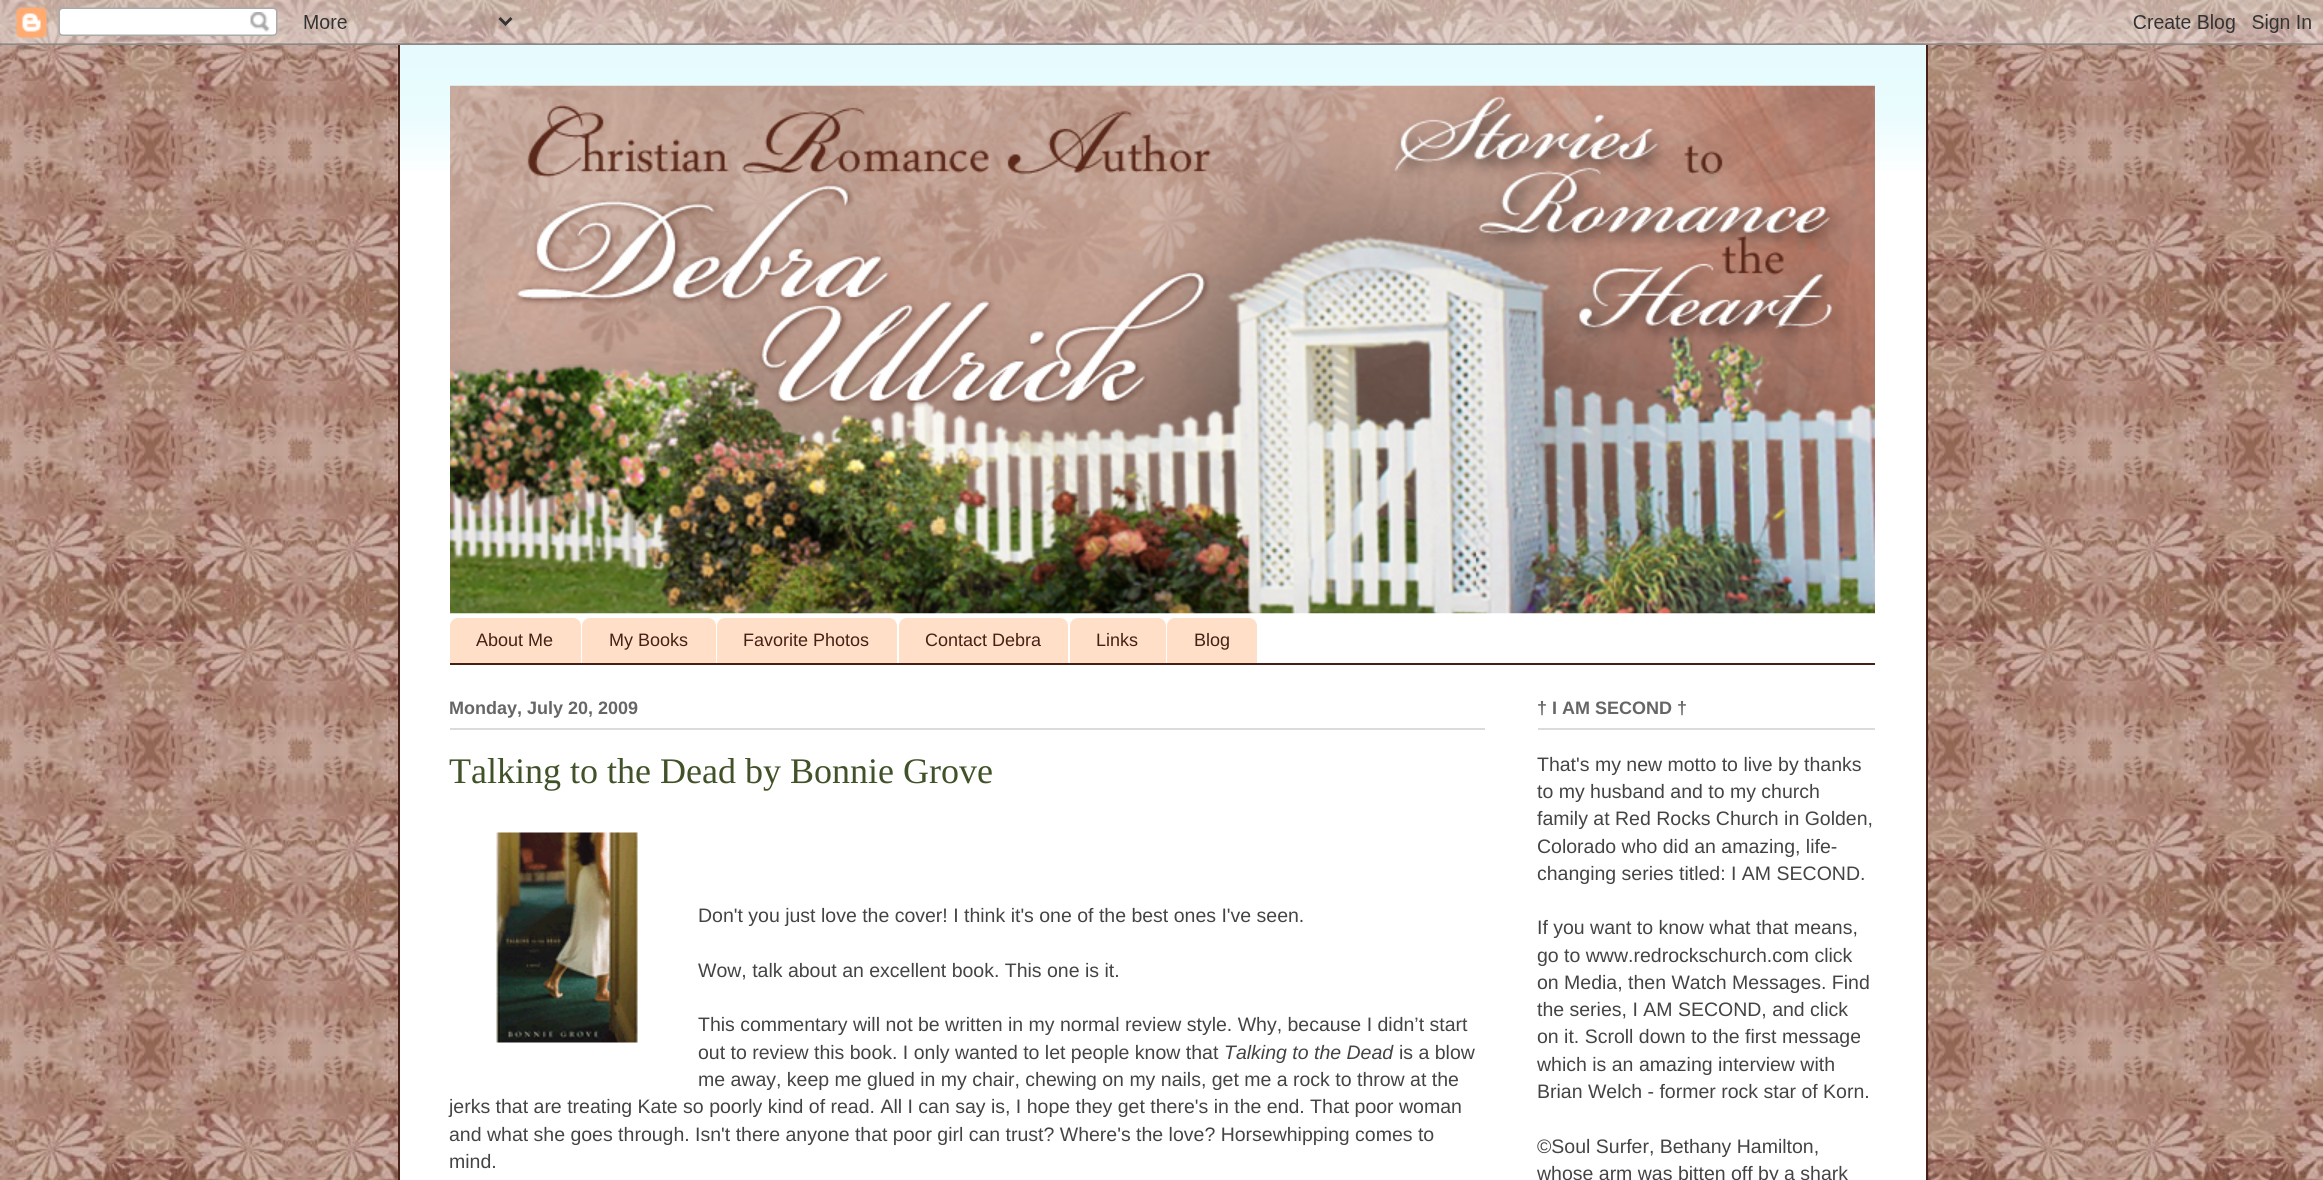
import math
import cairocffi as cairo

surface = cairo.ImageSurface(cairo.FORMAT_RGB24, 2323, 1180)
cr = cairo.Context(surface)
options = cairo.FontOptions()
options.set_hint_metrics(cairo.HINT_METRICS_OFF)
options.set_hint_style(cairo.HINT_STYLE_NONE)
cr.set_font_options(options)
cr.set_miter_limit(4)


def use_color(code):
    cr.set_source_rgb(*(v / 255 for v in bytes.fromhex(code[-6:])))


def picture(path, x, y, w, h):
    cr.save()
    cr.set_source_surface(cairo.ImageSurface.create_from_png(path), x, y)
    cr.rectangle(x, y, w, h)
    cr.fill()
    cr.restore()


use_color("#ffffff")
cr.paint()
picture("img1.png", 0, 0, 2323, 1180)
picture("img2.png", 0, 0, 2323, 45)
use_color("#ffffff")
cr.rectangle(400, 45, 1526, 1135)
cr.fill()
picture("img3.png", 397, 45, 1529, 126)
use_color("#462016")
cr.rectangle(1926, 45, 2, 1135)
cr.fill()
cr.rectangle(398, 45, 2, 1135)
cr.fill()
picture("img4.png", 450, 85, 1425, 529)
cr.rectangle(450, 663, 1425, 2)
cr.fill()
use_color("#ffdfc7")
cr.new_path()
cr.move_to(458, 618)
cr.line_to(573, 618)
cr.curve_to(577.5, 618, 581, 621.5, 581, 626)
cr.line_to(581, 663)
cr.line_to(450, 663)
cr.line_to(450, 626)
cr.curve_to(450, 621.5, 453.5, 618, 458, 618)
cr.close_path()
cr.fill()
cr.select_font_face("Liberation Sans")
cr.set_font_size(18)
use_color("#462016")
cr.move_to(476, 646)
cr.show_text("About Me")
use_color("#ffdfc7")
cr.new_path()
cr.move_to(590, 618)
cr.line_to(708, 618)
cr.curve_to(712.5, 618, 716, 621.5, 716, 626)
cr.line_to(716, 663)
cr.line_to(582, 663)
cr.line_to(582, 626)
cr.curve_to(582, 621.5, 585.5, 618, 590, 618)
cr.close_path()
cr.fill()
use_color("#462016")
cr.move_to(609, 646)
cr.show_text("My Books")
use_color("#ffdfc7")
cr.new_path()
cr.move_to(725, 618)
cr.line_to(889, 618)
cr.curve_to(893.5, 618, 897, 621.5, 897, 626)
cr.line_to(897, 663)
cr.line_to(717, 663)
cr.line_to(717, 626)
cr.curve_to(717, 621.5, 720.5, 618, 725, 618)
cr.close_path()
cr.fill()
use_color("#462016")
cr.move_to(743, 646)
cr.show_text("Favorite Photos")
use_color("#ffdfc7")
cr.new_path()
cr.move_to(907, 618)
cr.line_to(1060, 618)
cr.curve_to(1064.5, 618, 1068, 621.5, 1068, 626)
cr.line_to(1068, 663)
cr.line_to(899, 663)
cr.line_to(899, 626)
cr.curve_to(899, 621.5, 902.5, 618, 907, 618)
cr.close_path()
cr.fill()
use_color("#462016")
cr.move_to(925, 646)
cr.show_text("Contact Debra")
use_color("#ffdfc7")
cr.new_path()
cr.move_to(1078, 618)
cr.line_to(1158, 618)
cr.curve_to(1162.5, 618, 1166, 621.5, 1166, 626)
cr.line_to(1166, 663)
cr.line_to(1070, 663)
cr.line_to(1070, 626)
cr.curve_to(1070, 621.5, 1073.5, 618, 1078, 618)
cr.close_path()
cr.fill()
use_color("#462016")
cr.move_to(1096, 646)
cr.show_text("Links")
use_color("#ffdfc7")
cr.new_path()
cr.move_to(1175, 618)
cr.line_to(1249, 618)
cr.curve_to(1253.5, 618, 1257, 621.5, 1257, 626)
cr.line_to(1257, 663)
cr.line_to(1167, 663)
cr.line_to(1167, 626)
cr.curve_to(1167, 621.5, 1170.5, 618, 1175, 618)
cr.close_path()
cr.fill()
use_color("#462016")
cr.move_to(1194, 646)
cr.show_text("Blog")
use_color("#dbdbdb")
cr.rectangle(450, 728, 1035, 2)
cr.fill()
cr.select_font_face("Liberation Sans", cairo.FONT_SLANT_NORMAL, cairo.FONT_WEIGHT_BOLD)
use_color("#666666")
cr.move_to(449, 714)
cr.show_text("Monday, July 20, 2009")
cr.select_font_face("Liberation Serif")
cr.set_font_size(36)
use_color("#415229")
cr.move_to(449, 783)
cr.show_text("Talking to the Dead by Bonnie Grove")
picture("img5.png", 496, 832, 142, 211)
cr.select_font_face("Liberation Sans")
cr.set_font_size(19.5)
use_color("#444444")
cr.move_to(698, 922)
cr.show_text("Don't you just love the cover! I think it's one of the best ones I've seen.")
cr.move_to(698, 977)
cr.show_text("Wow, talk about an excellent book. This one is it.")
cr.move_to(698, 1031)
cr.show_text("This commentary will not be written in my normal review style. Why, because I didn’t start")
cr.move_to(698, 1059)
cr.show_text("out to review this book. I only wanted to let people know that")
cr.select_font_face("Liberation Sans", cairo.FONT_SLANT_ITALIC)
cr.move_to(1224, 1059)
cr.show_text("Talking to the Dead")
cr.select_font_face("Liberation Sans")
cr.move_to(1399, 1059)
cr.show_text("is a blow")
cr.move_to(698, 1086)
cr.show_text("me away, keep me glued in my chair, chewing on my nails, get me a rock to throw at the")
cr.move_to(449, 1113)
cr.show_text("jerks that are treating Kate so poorly kind of read. All I can say is, I hope they get there's in the end. That poor woman")
cr.move_to(449, 1141)
cr.show_text("and what she goes through. Isn't there anyone that poor girl can trust? Where's the love? Horsewhipping comes to")
cr.move_to(449, 1168)
cr.show_text("mind.")
use_color("#dbdbdb")
cr.rectangle(1538, 728, 337, 2)
cr.fill()
cr.select_font_face("Liberation Sans", cairo.FONT_SLANT_NORMAL, cairo.FONT_WEIGHT_BOLD)
cr.set_font_size(18)
use_color("#666666")
cr.move_to(1537, 714)
cr.show_text("† I AM SECOND †")
cr.select_font_face("Liberation Sans")
cr.set_font_size(19.5)
use_color("#444444")
cr.move_to(1537, 771)
cr.show_text("That's my new motto to live by thanks")
cr.move_to(1537, 798)
cr.show_text("to my husband and to my church")
cr.move_to(1537, 825)
cr.show_text("family at Red Rocks Church in Golden,")
cr.move_to(1537, 853)
cr.show_text("Colorado who did an amazing, life-")
cr.move_to(1537, 880)
cr.show_text("changing series titled: I AM SECOND.")
cr.move_to(1537, 934)
cr.show_text("If you want to know what that means,")
cr.move_to(1537, 962)
cr.show_text("go to www.redrockschurch.com click")
cr.move_to(1537, 989)
cr.show_text("on Media, then Watch Messages. Find")
cr.move_to(1537, 1016)
cr.show_text("the series, I AM SECOND, and click")
cr.move_to(1537, 1043)
cr.show_text("on it. Scroll down to the first message")
cr.move_to(1537, 1071)
cr.show_text("which is an amazing interview with")
cr.move_to(1537, 1098)
cr.show_text("Brian Welch - former rock star of Korn.")
cr.move_to(1537, 1153)
cr.show_text("©Soul Surfer, Bethany Hamilton,")
cr.move_to(1537, 1180)
cr.show_text("whose arm was bitten off by a shark")
surface.write_to_png("result.png")
